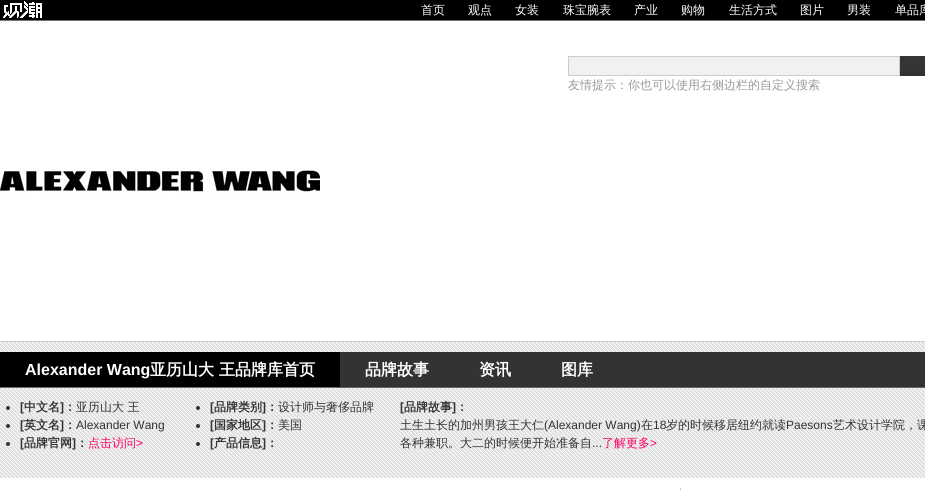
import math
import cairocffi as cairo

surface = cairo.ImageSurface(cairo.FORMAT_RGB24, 925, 490)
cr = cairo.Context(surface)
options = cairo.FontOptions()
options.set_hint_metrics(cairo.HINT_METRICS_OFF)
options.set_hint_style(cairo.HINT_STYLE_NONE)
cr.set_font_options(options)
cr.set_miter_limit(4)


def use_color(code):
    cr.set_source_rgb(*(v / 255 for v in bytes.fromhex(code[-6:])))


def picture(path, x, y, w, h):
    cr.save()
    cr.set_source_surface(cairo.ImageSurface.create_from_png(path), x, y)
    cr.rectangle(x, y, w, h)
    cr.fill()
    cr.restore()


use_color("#ffffff")
cr.paint()
use_color("#000000")
cr.rectangle(0, 0, 925, 20)
cr.fill()
use_color("#777777")
cr.rectangle(0, 20, 925, 1)
cr.fill()
picture("img1.png", 3, 1, 39, 17)
cr.select_font_face("WenQuanYi Zen Hei Medium")
cr.set_font_size(12)
use_color("#ffffff")
cr.move_to(421, 14)
cr.show_text("首页")
cr.move_to(468, 14)
cr.show_text("观点")
cr.move_to(515, 14)
cr.show_text("女装")
cr.move_to(563, 14)
cr.show_text("珠宝腕表")
cr.move_to(634, 14)
cr.show_text("产业")
cr.move_to(681, 14)
cr.show_text("购物")
cr.move_to(729, 14)
cr.show_text("生活方式")
cr.move_to(800, 14)
cr.show_text("图片")
cr.move_to(847, 14)
cr.show_text("男装")
cr.move_to(895, 14)
cr.show_text("单品库")
use_color("#f1f1f1")
cr.rectangle(568.5, 56.5, 331, 19)
cr.fill_preserve()
use_color("#cccccc")
cr.set_line_width(1)
cr.stroke()
picture("img2.png", 900, 56, 25, 20)
use_color("#999999")
cr.move_to(568, 89)
cr.show_text("友情提示：你也可以使用右侧边栏的自定义搜索")
picture("img3.png", 0, 168, 320, 26)
picture("img4.png", 0, 342, 925, 136)
use_color("#cccccc")
cr.rectangle(0, 341, 925, 1)
cr.fill()
use_color("#333333")
cr.rectangle(340, 352, 585, 35)
cr.fill()
use_color("#666666")
cr.rectangle(0, 387, 925, 1)
cr.fill()
use_color("#000000")
cr.rectangle(0, 352, 340, 35)
cr.fill()
cr.select_font_face("Liberation Sans", cairo.FONT_SLANT_NORMAL, cairo.FONT_WEIGHT_BOLD)
cr.set_font_size(16)
use_color("#ffffff")
cr.move_to(25, 375)
cr.show_text("Alexander Wang")
cr.select_font_face("WenQuanYi Zen Hei", cairo.FONT_SLANT_NORMAL, cairo.FONT_WEIGHT_BOLD)
cr.move_to(150, 375)
cr.show_text("亚历山大")
cr.move_to(219, 375)
cr.show_text("王品牌库首页")
cr.move_to(365, 375)
cr.show_text("品牌故事")
cr.move_to(479, 375)
cr.show_text("资讯")
cr.move_to(561, 375)
cr.show_text("图库")
use_color("#333333")
cr.new_path()
cr.arc(8, 408, 2, 0, 2 * math.pi)
cr.fill()
cr.select_font_face("Liberation Sans", cairo.FONT_SLANT_NORMAL, cairo.FONT_WEIGHT_BOLD)
cr.set_font_size(12)
cr.move_to(20, 411)
cr.show_text("[")
cr.select_font_face("WenQuanYi Zen Hei", cairo.FONT_SLANT_NORMAL, cairo.FONT_WEIGHT_BOLD)
cr.move_to(24, 411)
cr.show_text("中文名")
cr.select_font_face("Liberation Sans", cairo.FONT_SLANT_NORMAL, cairo.FONT_WEIGHT_BOLD)
cr.move_to(60, 411)
cr.show_text("]")
cr.select_font_face("WenQuanYi Zen Hei", cairo.FONT_SLANT_NORMAL, cairo.FONT_WEIGHT_BOLD)
cr.move_to(64, 411)
cr.show_text("：")
cr.select_font_face("WenQuanYi Zen Hei Medium")
cr.move_to(76, 411)
cr.show_text("亚历山大 王")
cr.new_path()
cr.arc(8, 426, 2, 0, 2 * math.pi)
cr.fill()
cr.select_font_face("Liberation Sans", cairo.FONT_SLANT_NORMAL, cairo.FONT_WEIGHT_BOLD)
cr.move_to(20, 429)
cr.show_text("[")
cr.select_font_face("WenQuanYi Zen Hei", cairo.FONT_SLANT_NORMAL, cairo.FONT_WEIGHT_BOLD)
cr.move_to(24, 429)
cr.show_text("英文名")
cr.select_font_face("Liberation Sans", cairo.FONT_SLANT_NORMAL, cairo.FONT_WEIGHT_BOLD)
cr.move_to(60, 429)
cr.show_text("]")
cr.select_font_face("WenQuanYi Zen Hei", cairo.FONT_SLANT_NORMAL, cairo.FONT_WEIGHT_BOLD)
cr.move_to(64, 429)
cr.show_text("：")
cr.select_font_face("Liberation Sans")
cr.move_to(76, 429)
cr.show_text("Alexander Wang")
cr.new_path()
cr.arc(8, 444, 2, 0, 2 * math.pi)
cr.fill()
cr.select_font_face("Liberation Sans", cairo.FONT_SLANT_NORMAL, cairo.FONT_WEIGHT_BOLD)
cr.move_to(20, 447)
cr.show_text("[")
cr.select_font_face("WenQuanYi Zen Hei", cairo.FONT_SLANT_NORMAL, cairo.FONT_WEIGHT_BOLD)
cr.move_to(24, 447)
cr.show_text("品牌官网")
cr.select_font_face("Liberation Sans", cairo.FONT_SLANT_NORMAL, cairo.FONT_WEIGHT_BOLD)
cr.move_to(72, 447)
cr.show_text("]")
cr.select_font_face("WenQuanYi Zen Hei", cairo.FONT_SLANT_NORMAL, cairo.FONT_WEIGHT_BOLD)
cr.move_to(76, 447)
cr.show_text("：")
cr.select_font_face("WenQuanYi Zen Hei Medium")
use_color("#ff0066")
cr.move_to(88, 447)
cr.show_text("点击访问")
cr.select_font_face("Liberation Sans")
cr.move_to(136, 447)
cr.show_text(">")
use_color("#333333")
cr.new_path()
cr.arc(198, 408, 2, 0, 2 * math.pi)
cr.fill()
cr.select_font_face("Liberation Sans", cairo.FONT_SLANT_NORMAL, cairo.FONT_WEIGHT_BOLD)
cr.move_to(210, 411)
cr.show_text("[")
cr.select_font_face("WenQuanYi Zen Hei", cairo.FONT_SLANT_NORMAL, cairo.FONT_WEIGHT_BOLD)
cr.move_to(214, 411)
cr.show_text("品牌类别")
cr.select_font_face("Liberation Sans", cairo.FONT_SLANT_NORMAL, cairo.FONT_WEIGHT_BOLD)
cr.move_to(262, 411)
cr.show_text("]")
cr.select_font_face("WenQuanYi Zen Hei", cairo.FONT_SLANT_NORMAL, cairo.FONT_WEIGHT_BOLD)
cr.move_to(266, 411)
cr.show_text("：")
cr.select_font_face("WenQuanYi Zen Hei Medium")
cr.move_to(278, 411)
cr.show_text("设计师与奢侈品牌")
cr.new_path()
cr.arc(198, 426, 2, 0, 2 * math.pi)
cr.fill()
cr.select_font_face("Liberation Sans", cairo.FONT_SLANT_NORMAL, cairo.FONT_WEIGHT_BOLD)
cr.move_to(210, 429)
cr.show_text("[")
cr.select_font_face("WenQuanYi Zen Hei", cairo.FONT_SLANT_NORMAL, cairo.FONT_WEIGHT_BOLD)
cr.move_to(214, 429)
cr.show_text("国家地区")
cr.select_font_face("Liberation Sans", cairo.FONT_SLANT_NORMAL, cairo.FONT_WEIGHT_BOLD)
cr.move_to(262, 429)
cr.show_text("]")
cr.select_font_face("WenQuanYi Zen Hei", cairo.FONT_SLANT_NORMAL, cairo.FONT_WEIGHT_BOLD)
cr.move_to(266, 429)
cr.show_text("：")
cr.select_font_face("WenQuanYi Zen Hei Medium")
cr.move_to(278, 429)
cr.show_text("美国")
cr.new_path()
cr.arc(198, 444, 2, 0, 2 * math.pi)
cr.fill()
cr.select_font_face("Liberation Sans", cairo.FONT_SLANT_NORMAL, cairo.FONT_WEIGHT_BOLD)
cr.move_to(210, 447)
cr.show_text("[")
cr.select_font_face("WenQuanYi Zen Hei", cairo.FONT_SLANT_NORMAL, cairo.FONT_WEIGHT_BOLD)
cr.move_to(214, 447)
cr.show_text("产品信息")
cr.select_font_face("Liberation Sans", cairo.FONT_SLANT_NORMAL, cairo.FONT_WEIGHT_BOLD)
cr.move_to(262, 447)
cr.show_text("]")
cr.select_font_face("WenQuanYi Zen Hei", cairo.FONT_SLANT_NORMAL, cairo.FONT_WEIGHT_BOLD)
cr.move_to(266, 447)
cr.show_text("：")
cr.select_font_face("Liberation Sans", cairo.FONT_SLANT_NORMAL, cairo.FONT_WEIGHT_BOLD)
cr.move_to(400, 411)
cr.show_text("[")
cr.select_font_face("WenQuanYi Zen Hei", cairo.FONT_SLANT_NORMAL, cairo.FONT_WEIGHT_BOLD)
cr.move_to(404, 411)
cr.show_text("品牌故事")
cr.select_font_face("Liberation Sans", cairo.FONT_SLANT_NORMAL, cairo.FONT_WEIGHT_BOLD)
cr.move_to(452, 411)
cr.show_text("]")
cr.select_font_face("WenQuanYi Zen Hei", cairo.FONT_SLANT_NORMAL, cairo.FONT_WEIGHT_BOLD)
cr.move_to(456, 411)
cr.show_text("：")
cr.select_font_face("WenQuanYi Zen Hei Medium")
cr.move_to(400, 429)
cr.show_text("土生土长的加州男孩王大仁")
cr.select_font_face("Liberation Sans")
cr.move_to(544, 429)
cr.show_text("(Alexander Wang)")
cr.select_font_face("WenQuanYi Zen Hei Medium")
cr.move_to(641, 429)
cr.show_text("在")
cr.select_font_face("Liberation Sans")
cr.move_to(653, 429)
cr.show_text("18")
cr.select_font_face("WenQuanYi Zen Hei Medium")
cr.move_to(666, 429)
cr.show_text("岁的时候移居纽约就读")
cr.select_font_face("Liberation Sans")
cr.move_to(786, 429)
cr.show_text("Paesons")
cr.select_font_face("WenQuanYi Zen Hei Medium")
cr.move_to(833, 429)
cr.show_text("艺术设计学院，课")
cr.move_to(400, 447)
cr.show_text("各种兼职。大二的时候便开始准备自")
cr.select_font_face("Liberation Sans")
cr.move_to(592, 447)
cr.show_text("...")
cr.select_font_face("WenQuanYi Zen Hei Medium")
use_color("#ff0066")
cr.move_to(602, 447)
cr.show_text("了解更多")
cr.select_font_face("Liberation Sans")
cr.move_to(650, 447)
cr.show_text(">")
use_color("#cccccc")
cr.rectangle(680, 488, 1, 2)
cr.fill()
surface.write_to_png("result.png")
